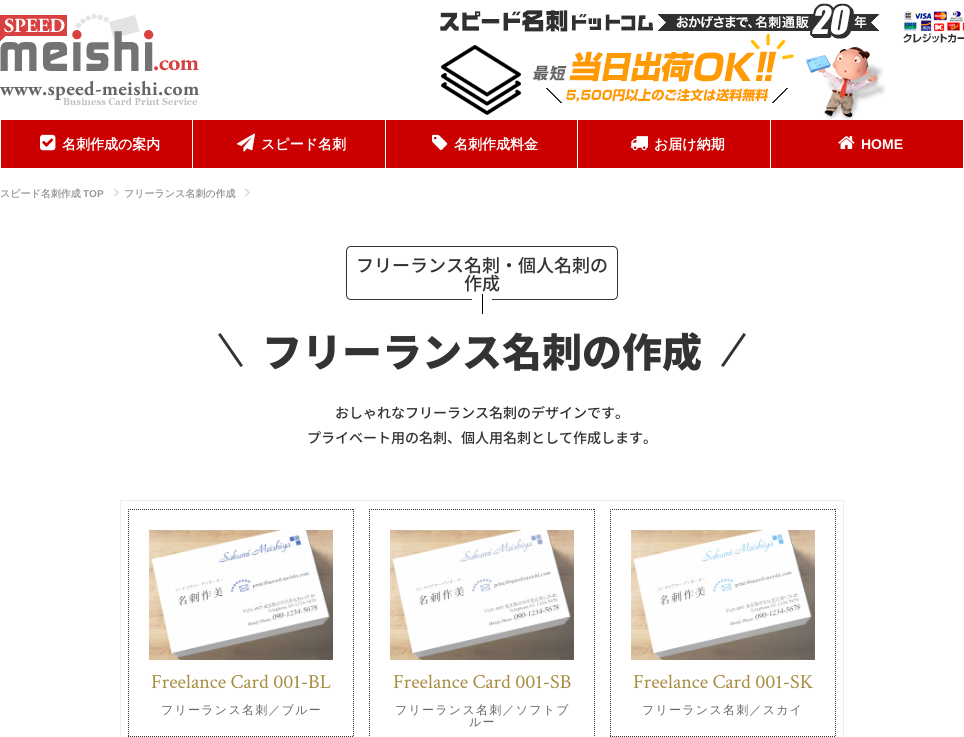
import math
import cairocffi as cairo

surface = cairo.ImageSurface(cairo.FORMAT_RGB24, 964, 737)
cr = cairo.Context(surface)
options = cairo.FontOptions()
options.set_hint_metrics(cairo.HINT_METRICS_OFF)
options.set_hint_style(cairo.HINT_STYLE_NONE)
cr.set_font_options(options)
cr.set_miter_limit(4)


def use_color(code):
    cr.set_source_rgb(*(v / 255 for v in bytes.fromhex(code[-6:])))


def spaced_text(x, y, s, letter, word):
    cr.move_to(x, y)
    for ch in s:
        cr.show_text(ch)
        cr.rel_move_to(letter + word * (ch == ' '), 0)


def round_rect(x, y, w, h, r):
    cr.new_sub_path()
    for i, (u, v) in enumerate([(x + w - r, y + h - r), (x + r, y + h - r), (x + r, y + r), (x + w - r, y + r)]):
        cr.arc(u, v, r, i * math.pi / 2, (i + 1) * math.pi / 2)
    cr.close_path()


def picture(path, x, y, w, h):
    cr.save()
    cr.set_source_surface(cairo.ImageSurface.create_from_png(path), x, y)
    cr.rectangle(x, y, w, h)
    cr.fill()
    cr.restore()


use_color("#ffffff")
cr.paint()
picture("img1.png", 440, 3, 524, 117)
picture("img2.png", 0, 14, 199, 91)
use_color("#cc0000")
cr.rectangle(1, 120, 191, 48)
cr.fill()
picture("img3.png", 40, 134, 16, 17)
cr.select_font_face("WenQuanYi Zen Hei", cairo.FONT_SLANT_NORMAL, cairo.FONT_WEIGHT_BOLD)
cr.set_font_size(14)
use_color("#ffffff")
cr.move_to(62, 149)
cr.show_text("名刺作成の案内")
use_color("#cc0000")
cr.rectangle(193, 120, 192, 48)
cr.fill()
picture("img4.png", 237, 133, 18, 19)
use_color("#ffffff")
cr.move_to(261, 149)
cr.show_text("スピード名刺")
use_color("#cc0000")
cr.rectangle(386, 120, 191, 48)
cr.fill()
picture("img5.png", 432, 134, 16, 16)
use_color("#ffffff")
cr.move_to(454, 149)
cr.show_text("名刺作成料金")
use_color("#cc0000")
cr.rectangle(578, 120, 192, 48)
cr.fill()
picture("img6.png", 630, 136, 18, 15)
use_color("#ffffff")
cr.move_to(654, 149)
cr.show_text("お届け納期")
use_color("#cc0000")
cr.rectangle(771, 120, 192, 48)
cr.fill()
picture("img7.png", 838, 136, 17, 13)
cr.select_font_face("Liberation Sans", cairo.FONT_SLANT_NORMAL, cairo.FONT_WEIGHT_BOLD)
use_color("#ffffff")
cr.move_to(861, 149)
cr.show_text("HOME")
cr.select_font_face("WenQuanYi Zen Hei", cairo.FONT_SLANT_NORMAL, cairo.FONT_WEIGHT_BOLD)
cr.set_font_size(10)
use_color("#999999")
cr.move_to(0, 197)
cr.show_text("スピード名刺作成")
cr.select_font_face("Liberation Sans", cairo.FONT_SLANT_NORMAL, cairo.FONT_WEIGHT_BOLD)
cr.move_to(83, 197)
cr.show_text("TOP")
picture("img8.png", 114, 188, 5, 9)
cr.select_font_face("WenQuanYi Zen Hei", cairo.FONT_SLANT_NORMAL, cairo.FONT_WEIGHT_BOLD)
cr.move_to(124, 197)
cr.show_text("フリーランス名刺の作成")
picture("img8.png", 245, 188, 5, 9)
round_rect(346.5, 246.5, 271, 53, 4.5)
use_color("#333333")
cr.set_line_width(1)
cr.stroke()
cr.select_font_face("Noto Sans JP Medium")
cr.set_font_size(18)
cr.move_to(356, 272)
cr.show_text("フリーランス名刺・個人名刺の")
cr.move_to(464, 290)
cr.show_text("作成")
use_color("#ffffff")
cr.rectangle(472, 299, 20, 1)
cr.fill()
use_color("#000000")
cr.rectangle(482, 294, 1, 20)
cr.fill()
use_color("#333333")
cr.new_path()
cr.move_to(218, 334.5)
cr.line_to(220.5, 333)
cr.line_to(243, 365.5)
cr.line_to(240.5, 367)
cr.close_path()
cr.fill()
cr.select_font_face("Noto Sans JP Black")
cr.set_font_size(40)
cr.move_to(262, 367)
cr.show_text("フリーランス名刺の作成")
cr.new_path()
cr.move_to(743.5, 333)
cr.line_to(746, 334.5)
cr.line_to(723.5, 367)
cr.line_to(721, 365.5)
cr.close_path()
cr.fill()
cr.select_font_face("Noto Sans JP Medium")
cr.set_font_size(14)
cr.move_to(335, 418)
cr.show_text("おしゃれなフリーランス名刺のデザインです。")
cr.move_to(307, 443)
cr.show_text("プライベート用の名刺、個人用名刺として作成します。")
cr.rectangle(120.5, 500.5, 723, 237)
use_color("#eeeeee")
cr.stroke()
cr.new_path()
cr.move_to(128, 509.5)
cr.line_to(354, 509.5)
use_color("#333333")
cr.set_dash([1, 1])
cr.stroke()
cr.new_path()
cr.move_to(353.5, 509)
cr.line_to(353.5, 737)
cr.stroke()
cr.new_path()
cr.move_to(128, 736.5)
cr.line_to(354, 736.5)
cr.stroke()
cr.new_path()
cr.move_to(128.5, 509)
cr.line_to(128.5, 737)
cr.stroke()
picture("img9.png", 149, 530, 184, 130)
cr.select_font_face("Crimson Text")
cr.set_font_size(20)
use_color("#a88c42")
cr.move_to(151, 688)
cr.show_text("Freelance Card 001-BL")
cr.select_font_face("WenQuanYi Zen Hei Medium")
cr.set_font_size(12)
use_color("#666666")
spaced_text(161, 714, "フリーランス名刺／ブルー", 1.25, 0)
cr.new_path()
cr.move_to(369, 509.5)
cr.line_to(595, 509.5)
use_color("#333333")
cr.stroke()
cr.new_path()
cr.move_to(594.5, 509)
cr.line_to(594.5, 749)
cr.stroke()
cr.new_path()
cr.move_to(369.5, 509)
cr.line_to(369.5, 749)
cr.stroke()
picture("img10.png", 390, 530, 184, 130)
cr.select_font_face("Crimson Text")
cr.set_font_size(20)
use_color("#a88c42")
cr.move_to(393, 688)
cr.show_text("Freelance Card 001-SB")
cr.select_font_face("WenQuanYi Zen Hei Medium")
cr.set_font_size(12)
use_color("#666666")
spaced_text(395, 714, "フリーランス名刺／ソフトブ", 1.25, 0)
spaced_text(469, 726, "ルー", 1.25, 0)
cr.new_path()
cr.move_to(610, 509.5)
cr.line_to(836, 509.5)
use_color("#333333")
cr.stroke()
cr.new_path()
cr.move_to(835.5, 509)
cr.line_to(835.5, 737)
cr.stroke()
cr.new_path()
cr.move_to(610, 736.5)
cr.line_to(836, 736.5)
cr.stroke()
cr.new_path()
cr.move_to(610.5, 509)
cr.line_to(610.5, 737)
cr.stroke()
picture("img11.png", 631, 530, 184, 130)
cr.select_font_face("Crimson Text")
cr.set_font_size(20)
use_color("#a88c42")
cr.move_to(633, 688)
cr.show_text("Freelance Card 001-SK")
cr.select_font_face("WenQuanYi Zen Hei Medium")
cr.set_font_size(12)
use_color("#666666")
spaced_text(642, 714, "フリーランス名刺／スカイ", 1.25, 0)
surface.write_to_png("result.png")
